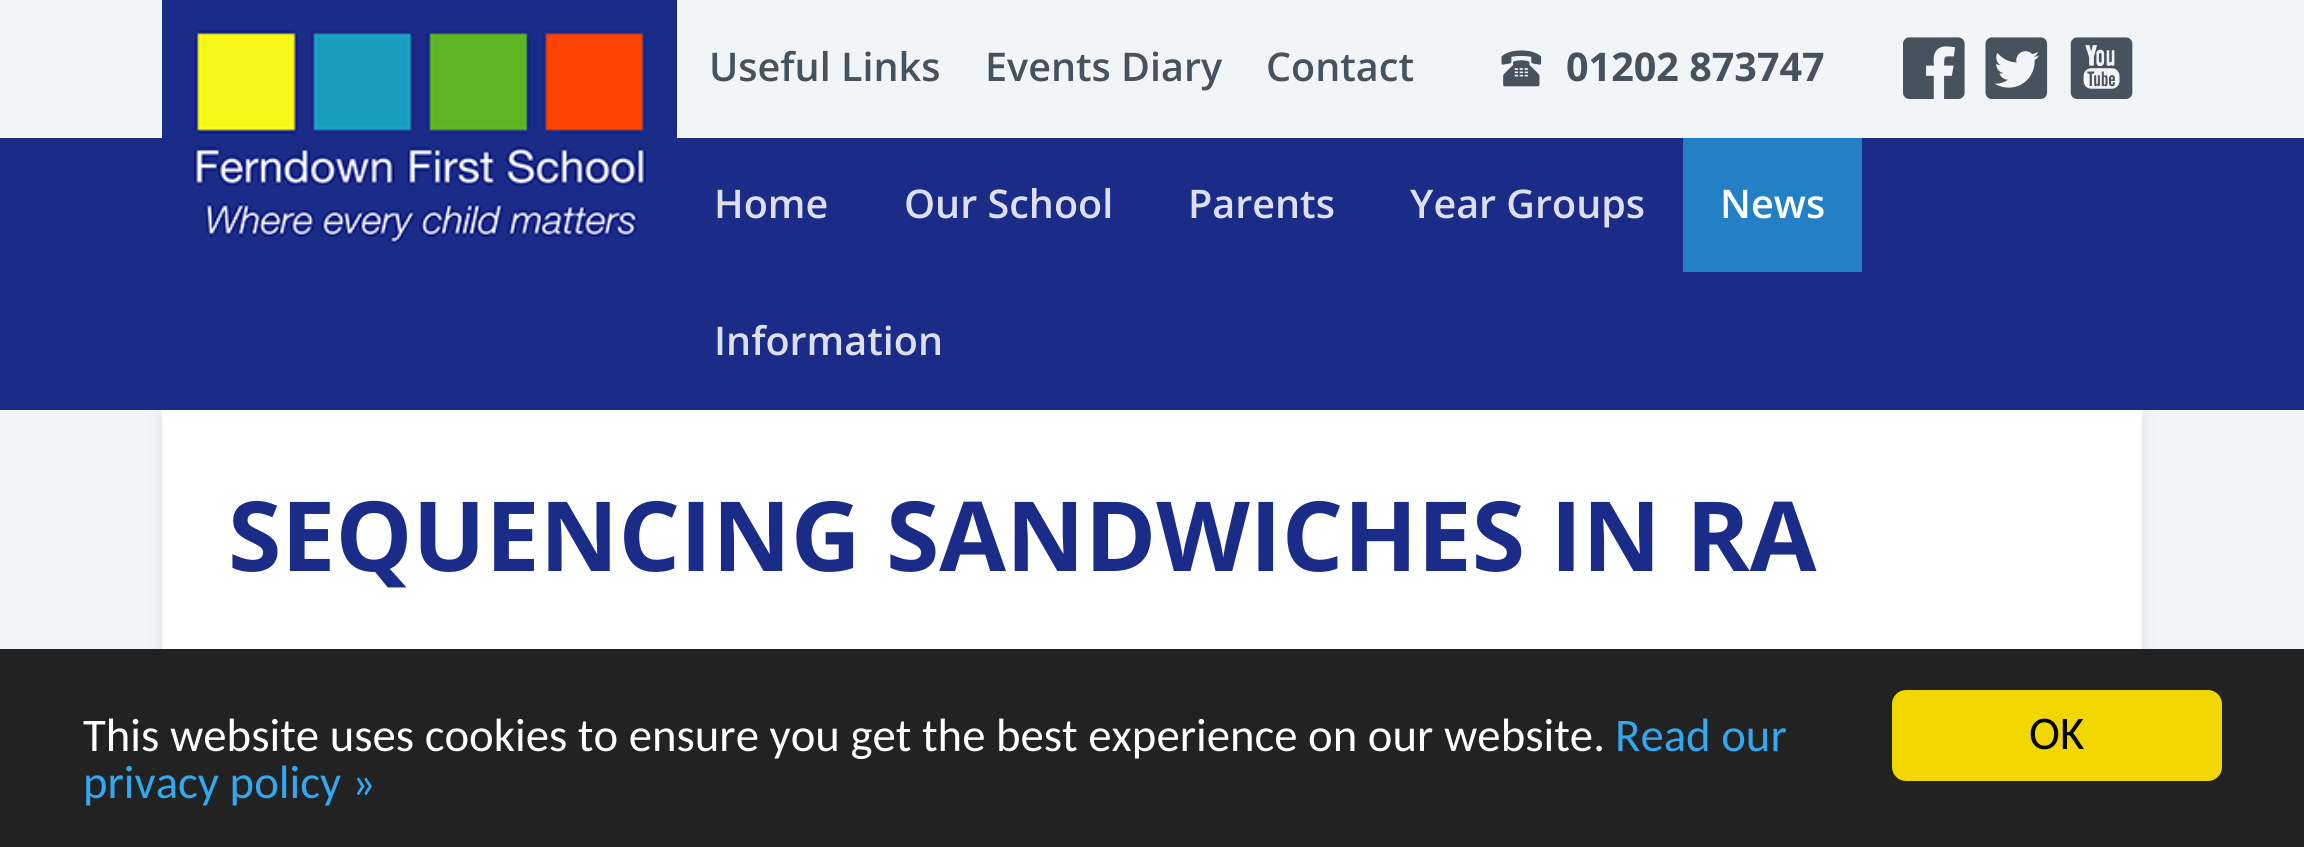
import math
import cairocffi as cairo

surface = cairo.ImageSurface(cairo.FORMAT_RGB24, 2304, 847)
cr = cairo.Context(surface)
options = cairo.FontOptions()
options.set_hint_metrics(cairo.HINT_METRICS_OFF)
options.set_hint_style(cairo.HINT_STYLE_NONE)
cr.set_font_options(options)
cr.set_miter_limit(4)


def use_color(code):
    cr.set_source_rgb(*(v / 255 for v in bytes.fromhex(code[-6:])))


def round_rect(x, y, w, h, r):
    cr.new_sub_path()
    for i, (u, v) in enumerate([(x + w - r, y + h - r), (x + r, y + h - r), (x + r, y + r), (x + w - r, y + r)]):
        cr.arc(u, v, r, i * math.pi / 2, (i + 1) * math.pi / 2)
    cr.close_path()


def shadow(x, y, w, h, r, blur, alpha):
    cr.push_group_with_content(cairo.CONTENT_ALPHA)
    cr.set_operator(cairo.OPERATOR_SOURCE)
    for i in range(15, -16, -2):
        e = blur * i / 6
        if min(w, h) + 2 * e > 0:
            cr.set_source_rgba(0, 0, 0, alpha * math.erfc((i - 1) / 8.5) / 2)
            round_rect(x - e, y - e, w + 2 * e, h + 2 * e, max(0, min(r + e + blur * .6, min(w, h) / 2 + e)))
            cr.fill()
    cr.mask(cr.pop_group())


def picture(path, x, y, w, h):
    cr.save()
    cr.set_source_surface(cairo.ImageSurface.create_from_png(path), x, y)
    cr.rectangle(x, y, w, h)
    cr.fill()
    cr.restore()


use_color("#f1f5f8")
cr.paint()
use_color("#1b2b88")
cr.rectangle(162, 0, 515, 138)
cr.fill()
cr.rectangle(0, 138, 2304, 272)
cr.fill()
picture("img1.png", 194, 30, 452, 214)
cr.select_font_face("Open Sans SemiBold")
cr.set_font_size(39.5)
use_color("#46525e")
cr.move_to(709, 81)
cr.show_text("Useful Links")
cr.move_to(985, 81)
cr.show_text("Events Diary")
cr.move_to(1266, 81)
cr.show_text("Contact")
picture("img2.png", 1501, 50, 41, 37)
cr.select_font_face("Open Sans", cairo.FONT_SLANT_NORMAL, cairo.FONT_WEIGHT_BOLD)
cr.move_to(1566, 81)
cr.show_text("01202 873747")
picture("img3.png", 1903, 37, 62, 62)
picture("img4.png", 1985, 37, 63, 62)
picture("img5.png", 2070, 37, 63, 62)
cr.select_font_face("Open Sans SemiBold")
use_color("#dddfed")
cr.move_to(714, 218)
cr.show_text("Home")
cr.move_to(904, 218)
cr.show_text("Our School")
cr.move_to(1188, 218)
cr.show_text("Parents")
cr.move_to(1410, 218)
cr.show_text("Year Groups")
use_color("#2480c6")
cr.rectangle(1683, 138, 179, 134)
cr.fill()
use_color("#ffffff")
cr.move_to(1720, 218)
cr.show_text("News")
use_color("#dddfed")
cr.move_to(714, 355)
cr.show_text("Information")
use_color("#000000")
shadow(162, 418, 1980, 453, 0, 8, 0.1)
use_color("#ffffff")
cr.rectangle(162, 410, 1980, 239)
cr.fill()
cr.select_font_face("Open Sans", cairo.FONT_SLANT_NORMAL, cairo.FONT_WEIGHT_BOLD)
cr.set_font_size(96.75)
use_color("#1b2b88")
cr.move_to(228, 571)
cr.show_text("SEQUENCING SANDWICHES IN RA")
use_color("#222222")
cr.rectangle(0, 649, 2304, 198)
cr.fill()
cr.select_font_face("Carlito")
cr.set_font_size(46.75)
use_color("#ffffff")
cr.move_to(83, 751)
cr.show_text("This website uses cookies to ensure you get the best experience on our website.")
use_color("#31a8f0")
cr.move_to(1615, 751)
cr.show_text("Read our")
cr.move_to(83, 798)
cr.show_text("privacy policy »")
use_color("#f1d600")
round_rect(1892, 690, 330, 91, 14)
cr.fill()
use_color("#000000")
cr.move_to(2029, 749)
cr.show_text("OK")
surface.write_to_png("result.png")
